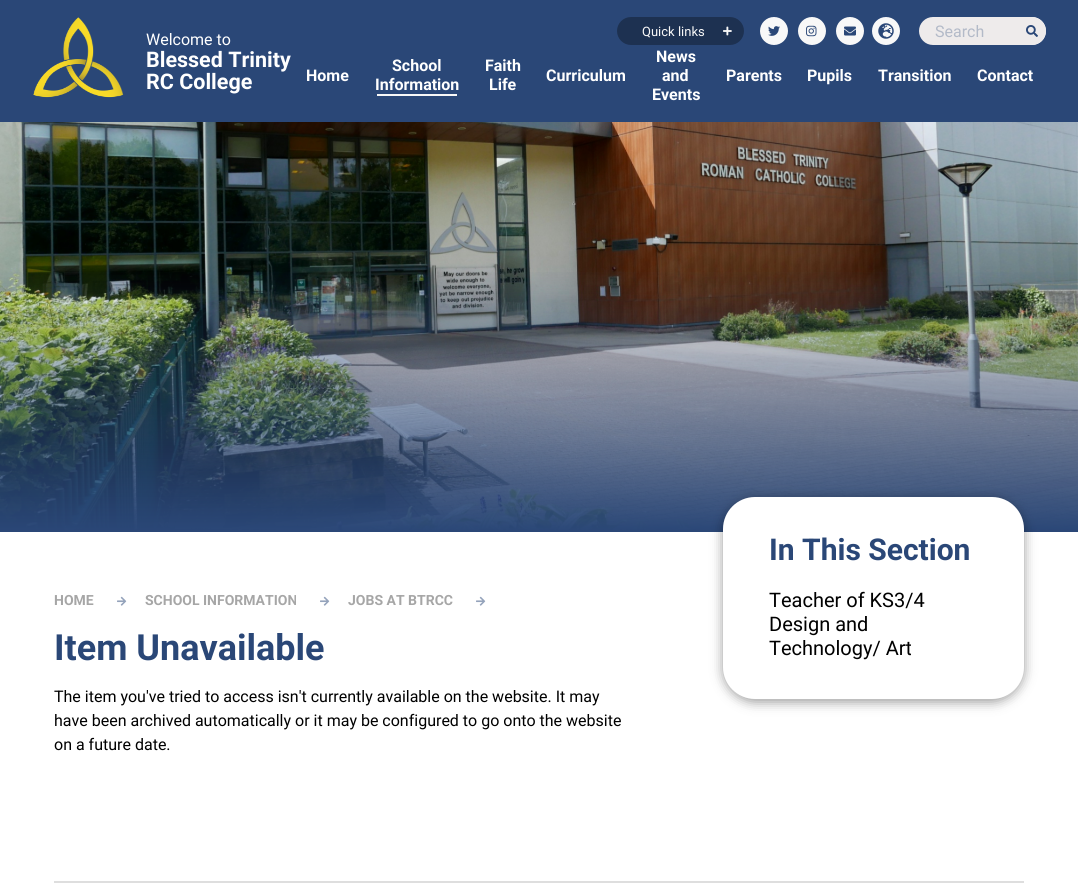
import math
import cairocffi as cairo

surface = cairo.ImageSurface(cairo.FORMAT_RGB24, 1078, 887)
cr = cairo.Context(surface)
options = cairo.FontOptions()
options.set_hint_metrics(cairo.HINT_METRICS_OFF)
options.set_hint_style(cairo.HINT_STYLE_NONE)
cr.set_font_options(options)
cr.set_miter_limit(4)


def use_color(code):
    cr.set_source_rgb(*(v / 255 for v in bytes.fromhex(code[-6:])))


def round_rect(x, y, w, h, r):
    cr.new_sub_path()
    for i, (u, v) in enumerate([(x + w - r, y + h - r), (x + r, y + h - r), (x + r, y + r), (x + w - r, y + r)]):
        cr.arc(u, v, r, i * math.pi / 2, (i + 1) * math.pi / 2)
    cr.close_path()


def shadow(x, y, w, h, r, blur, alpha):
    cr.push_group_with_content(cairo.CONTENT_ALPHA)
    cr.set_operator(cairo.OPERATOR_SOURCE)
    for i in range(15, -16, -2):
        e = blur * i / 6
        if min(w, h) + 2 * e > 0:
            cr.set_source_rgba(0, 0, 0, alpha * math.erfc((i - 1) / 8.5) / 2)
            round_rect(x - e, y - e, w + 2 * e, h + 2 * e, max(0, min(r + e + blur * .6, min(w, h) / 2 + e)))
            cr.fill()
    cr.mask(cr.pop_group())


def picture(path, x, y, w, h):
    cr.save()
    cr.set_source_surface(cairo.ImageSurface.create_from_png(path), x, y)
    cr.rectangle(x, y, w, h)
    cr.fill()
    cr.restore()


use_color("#ffffff")
cr.paint()
use_color("#2a4777")
cr.rectangle(0, 0, 1078, 122)
cr.fill()
picture("img1.png", 33, 17, 91, 81)
cr.select_font_face("Roboto")
cr.set_font_size(16)
use_color("#ffffff")
cr.move_to(146, 45)
cr.show_text("Welcome to")
cr.select_font_face("Roboto", cairo.FONT_SLANT_NORMAL, cairo.FONT_WEIGHT_BOLD)
cr.set_font_size(21.5)
cr.move_to(146, 67)
cr.show_text("Blessed Trinity")
cr.move_to(146, 89)
cr.show_text("RC College")
use_color("#1d3151")
round_rect(617, 17, 127, 28, 14)
cr.fill()
cr.select_font_face("Roboto")
cr.set_font_size(13)
use_color("#f8f8f8")
cr.move_to(642, 36)
cr.show_text("Quick links")
picture("img2.png", 723, 26, 9, 10)
cr.arc(774, 31, 13, 0, 2 * math.pi)
cr.fill_preserve()
cr.stroke()
picture("img3.png", 768, 26, 12, 10)
cr.arc(812, 31, 13, 0, 2 * math.pi)
cr.fill_preserve()
cr.stroke()
picture("img4.png", 806, 25, 11, 12)
cr.arc(850, 31, 13, 0, 2 * math.pi)
cr.fill_preserve()
cr.stroke()
picture("img5.png", 844, 26, 12, 10)
cr.arc(886, 31, 13, 0, 2 * math.pi)
cr.fill_preserve()
cr.stroke()
picture("img6.png", 878, 23, 16, 16)
cr.arc(1032, 31, 13, 0, 2 * math.pi)
cr.stroke()
use_color("#eeebeb")
round_rect(919, 17, 127, 28, 14)
cr.fill()
cr.set_font_size(16)
use_color("#b3bac8")
cr.move_to(935, 37)
cr.show_text("Search")
picture("img7.png", 1026, 25, 12, 12)
cr.select_font_face("Roboto", cairo.FONT_SLANT_NORMAL, cairo.FONT_WEIGHT_BOLD)
use_color("#ffffff")
cr.move_to(306, 81)
cr.show_text("Home")
cr.move_to(392, 71)
cr.show_text("School")
cr.move_to(375, 90)
cr.show_text("Information")
use_color("#f8f8f8")
cr.rectangle(377, 94, 80, 2)
cr.fill()
use_color("#ffffff")
cr.move_to(485, 71)
cr.show_text("Faith")
cr.move_to(489, 90)
cr.show_text("Life")
cr.move_to(546, 81)
cr.show_text("Curriculum")
cr.move_to(656, 62)
cr.show_text("News")
cr.move_to(662, 81)
cr.show_text("and")
cr.move_to(652, 100)
cr.show_text("Events")
cr.move_to(726, 81)
cr.show_text("Parents")
cr.move_to(807, 81)
cr.show_text("Pupils")
cr.move_to(878, 81)
cr.show_text("Transition")
cr.move_to(977, 81)
cr.show_text("Contact")
picture("img8.png", 0, 122, 1078, 408)
gradient = cairo.LinearGradient(539, 266, 539, 532)
gradient.add_color_stop_rgba(0, 0.165, 0.278, 0.467, 0)
gradient.add_color_stop_rgba(1, 0.165, 0.278, 0.467, 1)
cr.set_source(gradient)
cr.rectangle(0, 272, 1078, 260)
cr.fill()
cr.set_font_size(14)
use_color("#a6a6a6")
cr.move_to(54, 605)
cr.show_text("HOME")
picture("img9.png", 117, 596, 10, 10)
cr.move_to(145, 605)
cr.show_text("SCHOOL INFORMATION")
picture("img9.png", 320, 596, 10, 10)
cr.move_to(348, 605)
cr.show_text("JOBS AT BTRCC")
picture("img9.png", 476, 596, 10, 10)
cr.set_font_size(36)
use_color("#2a4777")
cr.move_to(54, 660)
cr.show_text("Item Unavailable")
cr.select_font_face("Roboto")
cr.set_font_size(16)
use_color("#000000")
cr.move_to(54, 702)
cr.show_text("The item you've tried to access isn't currently available on the website. It may")
cr.move_to(54, 726)
cr.show_text("have been archived automatically or it may be configured to go onto the website")
cr.move_to(54, 750)
cr.show_text("on a future date.")
use_color("#000000")
shadow(723, 500, 301, 202, 32, 6, 0.4)
use_color("#ffffff")
round_rect(723, 497, 301, 202, 32)
cr.fill()
cr.select_font_face("Roboto", cairo.FONT_SLANT_NORMAL, cairo.FONT_WEIGHT_BOLD)
cr.set_font_size(30)
use_color("#2a4777")
cr.move_to(769, 560)
cr.show_text("In This Section")
cr.select_font_face("Roboto")
cr.set_font_size(20)
use_color("#000000")
cr.move_to(769, 607)
cr.show_text("Teacher of KS3/4")
cr.move_to(769, 631)
cr.show_text("Design and")
cr.move_to(769, 655)
cr.show_text("Technology/ Art")
use_color("#dedede")
cr.rectangle(54, 881, 970, 2)
cr.fill()
surface.write_to_png("result.png")
